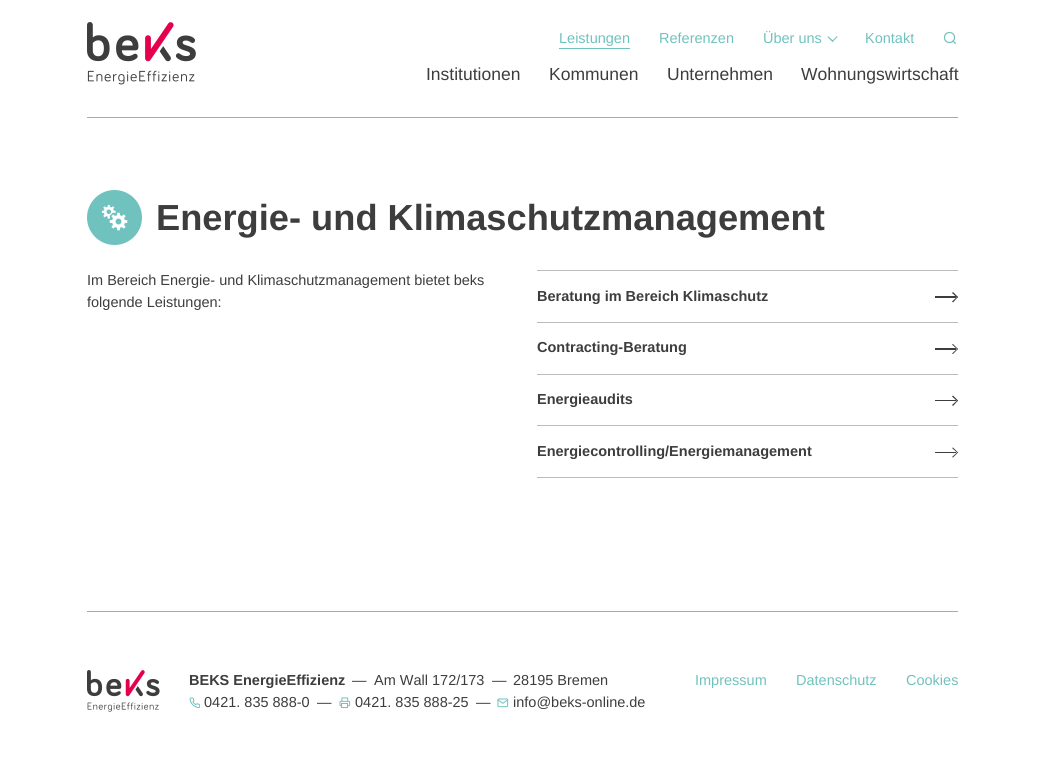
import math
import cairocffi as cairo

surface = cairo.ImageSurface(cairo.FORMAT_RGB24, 1045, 772)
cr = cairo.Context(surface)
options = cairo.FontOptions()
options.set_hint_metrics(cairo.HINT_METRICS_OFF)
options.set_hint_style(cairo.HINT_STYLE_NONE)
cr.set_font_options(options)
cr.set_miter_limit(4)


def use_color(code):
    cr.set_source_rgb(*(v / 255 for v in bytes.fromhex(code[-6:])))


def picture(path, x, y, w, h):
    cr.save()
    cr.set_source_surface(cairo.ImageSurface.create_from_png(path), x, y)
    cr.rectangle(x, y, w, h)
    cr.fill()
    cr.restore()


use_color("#ffffff")
cr.paint()
picture("img1.png", 87, 22, 109, 63)
cr.select_font_face("Liberation Sans")
cr.set_font_size(14.5)
use_color("#70c2be")
cr.move_to(559, 43)
cr.show_text("Leistungen")
cr.rectangle(559, 48, 71, 1)
cr.fill()
cr.move_to(659, 43)
cr.show_text("Referenzen")
cr.move_to(763, 43)
cr.show_text("Über uns")
cr.new_path()
cr.move_to(837, 36)
cr.line_to(837.5, 37)
cr.line_to(832.5, 42)
cr.line_to(832, 41)
cr.close_path()
cr.fill()
cr.new_path()
cr.move_to(828, 36)
cr.line_to(833.5, 41)
cr.line_to(832.5, 42)
cr.line_to(827.5, 37)
cr.close_path()
cr.fill()
cr.move_to(865, 43)
cr.show_text("Kontakt")
cr.new_path()
cr.arc(949.5, 37.5, 5, 0, 2 * math.pi)
cr.set_line_width(1.2)
cr.stroke()
cr.new_path()
cr.move_to(955.5, 43.5)
cr.line_to(953, 41)
cr.set_line_cap(cairo.LINE_CAP_ROUND)
cr.set_line_join(cairo.LINE_JOIN_ROUND)
cr.stroke()
cr.set_font_size(17.5)
use_color("#3d3d3d")
cr.move_to(426, 80)
cr.show_text("Institutionen")
cr.move_to(549, 80)
cr.show_text("Kommunen")
cr.move_to(667, 80)
cr.show_text("Unternehmen")
cr.move_to(801, 80)
cr.show_text("Wohnungswirtschaft")
use_color("#70c2be")
cr.rectangle(87, 117, 871, 1)
cr.fill()
cr.arc(114.5, 217.5, 27.5, 0, 2 * math.pi)
cr.fill()
picture("img2.png", 101, 204, 27, 27)
cr.select_font_face("Liberation Sans", cairo.FONT_SLANT_NORMAL, cairo.FONT_WEIGHT_BOLD)
cr.set_font_size(36.25)
use_color("#3d3d3d")
cr.move_to(156, 230)
cr.show_text("Energie- und Klimaschutzmanagement")
cr.select_font_face("Liberation Sans")
cr.set_font_size(14.5)
cr.move_to(87, 285)
cr.show_text("Im Bereich Energie- und Klimaschutzmanagement bietet beks")
cr.move_to(87, 307)
cr.show_text("folgende Leistungen:")
use_color("#bbbbbb")
cr.rectangle(537, 270, 421, 1)
cr.fill()
cr.select_font_face("Liberation Sans", cairo.FONT_SLANT_NORMAL, cairo.FONT_WEIGHT_BOLD)
use_color("#3d3d3d")
cr.move_to(537, 301)
cr.show_text("Beratung im Bereich Klimaschutz")
cr.rectangle(935, 296, 21, 2)
cr.fill()
cr.new_path()
cr.move_to(952, 293)
cr.line_to(953, 292)
cr.line_to(958, 297)
cr.line_to(957.5, 298)
cr.close_path()
cr.fill()
cr.new_path()
cr.move_to(952, 301.5)
cr.line_to(957.5, 296.5)
cr.line_to(958, 297)
cr.line_to(953, 302.5)
cr.close_path()
cr.fill()
use_color("#bbbbbb")
cr.rectangle(537, 322, 421, 1)
cr.fill()
use_color("#3d3d3d")
cr.move_to(537, 352)
cr.show_text("Contracting-Beratung")
cr.rectangle(935, 348, 21, 2)
cr.fill()
cr.new_path()
cr.move_to(952, 344.5)
cr.line_to(953, 344)
cr.line_to(958, 349)
cr.line_to(957.5, 349.5)
cr.close_path()
cr.fill()
cr.new_path()
cr.move_to(952, 353.5)
cr.line_to(957.5, 348.5)
cr.line_to(958, 349)
cr.line_to(953, 354)
cr.close_path()
cr.fill()
use_color("#bbbbbb")
cr.rectangle(537, 374, 421, 1)
cr.fill()
use_color("#3d3d3d")
cr.move_to(537, 404)
cr.show_text("Energieaudits")
cr.rectangle(935, 400, 21, 1)
cr.fill()
cr.new_path()
cr.move_to(952, 396.5)
cr.line_to(953, 395.5)
cr.line_to(958, 400.5)
cr.line_to(957.5, 401.5)
cr.close_path()
cr.fill()
cr.new_path()
cr.move_to(952, 405)
cr.line_to(957.5, 400)
cr.line_to(958, 400.5)
cr.line_to(953, 406)
cr.close_path()
cr.fill()
use_color("#bbbbbb")
cr.rectangle(537, 425, 421, 1)
cr.fill()
cr.rectangle(537, 477, 421, 1)
cr.fill()
use_color("#3d3d3d")
cr.move_to(537, 456)
cr.show_text("Energiecontrolling/Energiemanagement")
cr.rectangle(935, 452, 21, 1)
cr.fill()
cr.new_path()
cr.move_to(952, 448)
cr.line_to(953, 447.5)
cr.line_to(958, 452.5)
cr.line_to(957.5, 453)
cr.close_path()
cr.fill()
cr.new_path()
cr.move_to(952, 457)
cr.line_to(957.5, 452)
cr.line_to(958, 452.5)
cr.line_to(953, 457.5)
cr.close_path()
cr.fill()
use_color("#70c2be")
cr.rectangle(87, 611, 871, 1)
cr.fill()
picture("img3.png", 87, 670, 73, 42)
use_color("#3d3d3d")
cr.move_to(189, 685)
cr.show_text("BEKS EnergieEffizienz")
cr.select_font_face("Liberation Sans")
cr.move_to(352, 685)
cr.show_text("—")
cr.move_to(374, 685)
cr.show_text("Am Wall 172/173")
cr.move_to(492, 685)
cr.show_text("—")
cr.move_to(513, 685)
cr.show_text("28195 Bremen")
picture("img4.png", 189, 697, 11, 11)
cr.move_to(204, 707)
cr.show_text("0421. 835 888-0")
cr.move_to(317, 707)
cr.show_text("—")
picture("img5.png", 339, 697, 12, 11)
cr.move_to(355, 707)
cr.show_text("0421. 835 888-25")
cr.move_to(476, 707)
cr.show_text("—")
picture("img6.png", 497, 698, 12, 10)
cr.move_to(513, 707)
cr.show_text("info@beks-online.de")
use_color("#70c2be")
cr.move_to(695, 685)
cr.show_text("Impressum")
cr.move_to(796, 685)
cr.show_text("Datenschutz")
cr.move_to(906, 685)
cr.show_text("Cookies")
surface.write_to_png("result.png")
